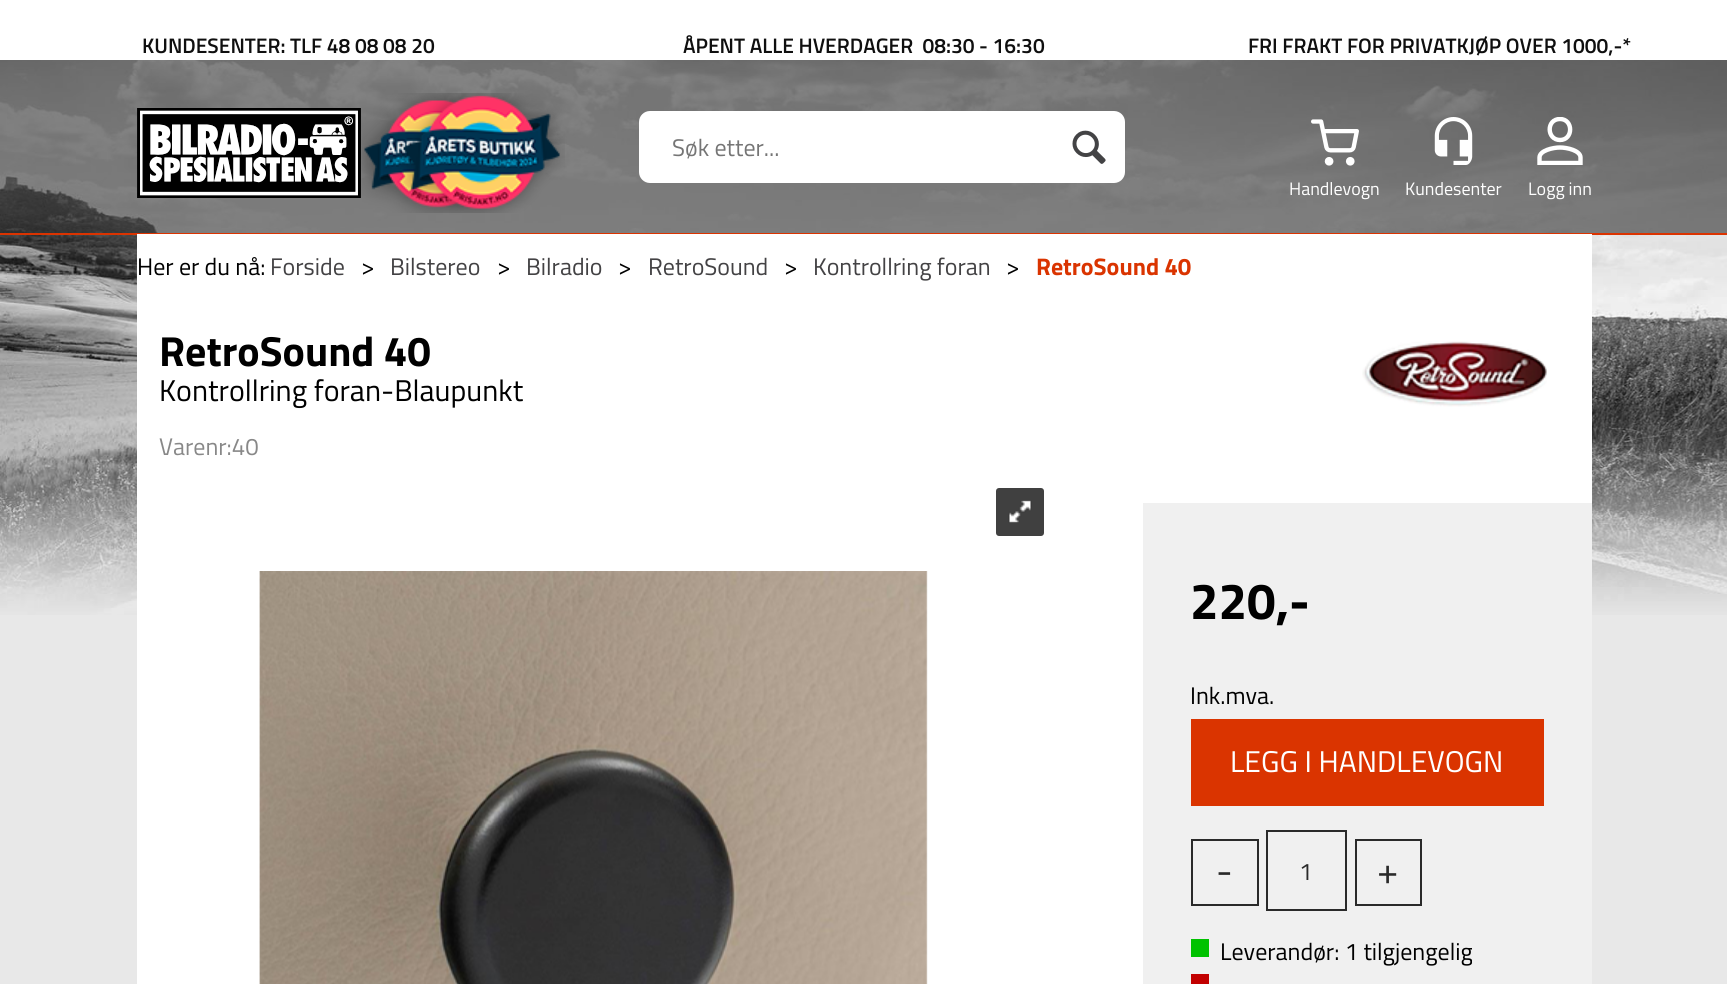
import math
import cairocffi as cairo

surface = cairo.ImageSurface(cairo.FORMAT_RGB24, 1727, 984)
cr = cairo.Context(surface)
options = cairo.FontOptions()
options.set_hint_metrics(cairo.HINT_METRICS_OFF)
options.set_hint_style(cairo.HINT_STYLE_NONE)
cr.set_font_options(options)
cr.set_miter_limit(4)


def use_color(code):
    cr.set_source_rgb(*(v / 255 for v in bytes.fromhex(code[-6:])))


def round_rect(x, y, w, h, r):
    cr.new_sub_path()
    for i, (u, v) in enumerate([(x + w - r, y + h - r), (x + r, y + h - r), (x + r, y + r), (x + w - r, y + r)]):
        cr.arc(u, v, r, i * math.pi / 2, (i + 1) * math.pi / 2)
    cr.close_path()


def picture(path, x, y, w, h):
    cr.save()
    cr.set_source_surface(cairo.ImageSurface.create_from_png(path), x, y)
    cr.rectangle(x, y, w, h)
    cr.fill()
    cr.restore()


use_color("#e8e8e8")
cr.paint()
picture("img1.png", 0, 60, 1727, 555)
cr.set_source_rgba(0.192, 0.192, 0.192, 0.6)
cr.rectangle(0, 60, 1727, 173)
cr.fill()
use_color("#ffffff")
cr.rectangle(0, 0, 1727, 60)
cr.fill()
cr.select_font_face("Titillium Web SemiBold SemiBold")
cr.set_font_size(21)
use_color("#0f0f0f")
cr.move_to(142, 53)
cr.show_text("KUNDESENTER: TLF 48 08 08 20")
cr.move_to(683, 53)
cr.show_text("ÅPENT ALLE HVERDAGER  08:30 - 16:30")
cr.move_to(1248, 53)
cr.show_text("FRI FRAKT FOR PRIVATKJØP OVER 1000,-*")
picture("img2.png", 137, 108, 224, 90)
picture("img3.png", 361, 93, 204, 120)
use_color("#ffffff")
round_rect(639, 111, 486, 72, 11)
cr.fill()
cr.select_font_face("Titillium Web")
cr.set_font_size(24)
use_color("#757575")
cr.move_to(672, 156)
cr.show_text("Søk etter...")
picture("img4.png", 1072, 130, 34, 34)
picture("img5.png", 1311, 119, 48, 47)
cr.set_font_size(18)
use_color("#ffffff")
cr.move_to(1289, 195)
cr.show_text("Handlevogn")
picture("img6.png", 1434, 117, 39, 48)
cr.move_to(1405, 195)
cr.show_text("Kundesenter")
cr.save()
cr.rectangle(1536, 117, 48, 48)
cr.clip()
cr.new_path()
cr.move_to(1560, 140)
cr.curve_to(1573.5, 140, 1573.5, 119, 1560, 119)
cr.curve_to(1546, 119, 1546.5, 140, 1560, 140)
cr.close_path()
cr.move_to(1560, 147.5)
cr.curve_to(1553, 147.5, 1539.5, 150.5, 1539.5, 157.5)
cr.line_to(1539.5, 163)
cr.line_to(1580.5, 163)
cr.line_to(1580.5, 157.5)
cr.curve_to(1580.5, 150.5, 1567, 147.5, 1560, 147.5)
cr.close_path()
cr.set_line_width(4.4)
cr.stroke()
cr.restore()
cr.move_to(1528, 195)
cr.show_text("Logg inn")
use_color("#db3300")
cr.rectangle(0, 233, 1727, 2)
cr.fill()
use_color("#ffffff")
cr.rectangle(137, 234, 1455, 750)
cr.fill()
cr.set_font_size(24)
use_color("#000000")
cr.move_to(137, 275)
cr.show_text("Her er du nå:")
use_color("#434244")
cr.move_to(270, 275)
cr.show_text("Forside")
use_color("#000000")
cr.move_to(361, 275)
cr.show_text(">")
use_color("#434244")
cr.move_to(390, 275)
cr.show_text("Bilstereo")
use_color("#000000")
cr.move_to(497, 275)
cr.show_text(">")
use_color("#434244")
cr.move_to(526, 275)
cr.show_text("Bilradio")
use_color("#000000")
cr.move_to(618, 275)
cr.show_text(">")
use_color("#434244")
cr.move_to(648, 275)
cr.show_text("RetroSound")
use_color("#000000")
cr.move_to(784, 275)
cr.show_text(">")
use_color("#434244")
cr.move_to(813, 275)
cr.show_text("Kontrollring foran")
use_color("#000000")
cr.move_to(1006, 275)
cr.show_text(">")
cr.select_font_face("Titillium Web", cairo.FONT_SLANT_NORMAL, cairo.FONT_WEIGHT_BOLD)
use_color("#da3400")
cr.move_to(1036, 275)
cr.show_text("RetroSound 40")
cr.set_font_size(42)
use_color("#000000")
cr.move_to(159, 366)
cr.show_text("RetroSound 40")
cr.select_font_face("Titillium Web")
cr.set_font_size(30)
cr.move_to(159, 401)
cr.show_text("Kontrollring foran-Blaupunkt")
picture("img7.png", 1362, 341, 185, 66)
cr.set_font_size(24)
use_color("#888888")
cr.move_to(159, 455)
cr.show_text("Varenr:40")
use_color("#404040")
round_rect(996, 488, 48, 48, 3)
cr.fill()
picture("img8.png", 1008, 500, 24, 23)
picture("img9.png", 259, 571, 669, 413)
use_color("#f0f0f0")
cr.rectangle(1143, 503, 449, 481)
cr.fill()
cr.select_font_face("Titillium Web", cairo.FONT_SLANT_NORMAL, cairo.FONT_WEIGHT_BOLD)
cr.set_font_size(51)
use_color("#000000")
cr.move_to(1190, 619)
cr.show_text("220,-")
cr.select_font_face("Titillium Web")
cr.set_font_size(24)
cr.move_to(1190, 704)
cr.show_text("Ink.mva.")
use_color("#da3400")
cr.rectangle(1191, 719, 353, 87)
cr.fill()
cr.set_font_size(30)
use_color("#ffffff")
cr.move_to(1230, 772)
cr.show_text("LEGG I HANDLEVOGN")
cr.rectangle(1192, 840, 66, 65)
use_color("#2a2a2a")
cr.stroke()
cr.set_font_size(38)
cr.move_to(1216, 884)
cr.show_text("-")
cr.rectangle(1267, 831, 79, 79)
cr.stroke()
cr.set_font_size(24)
cr.move_to(1299, 880)
cr.show_text("1")
cr.rectangle(1356, 840, 65, 65)
cr.stroke()
cr.set_font_size(38)
cr.move_to(1377, 884)
cr.show_text("+")
cr.set_font_size(24)
use_color("#000000")
cr.move_to(1220, 960)
cr.show_text("Leverandør: 1 tilgjengelig")
use_color("#00c200")
cr.rectangle(1191, 939, 18, 18)
cr.fill()
use_color("#c20000")
cr.rectangle(1191, 974, 18, 10)
cr.fill()
surface.write_to_png("result.png")
